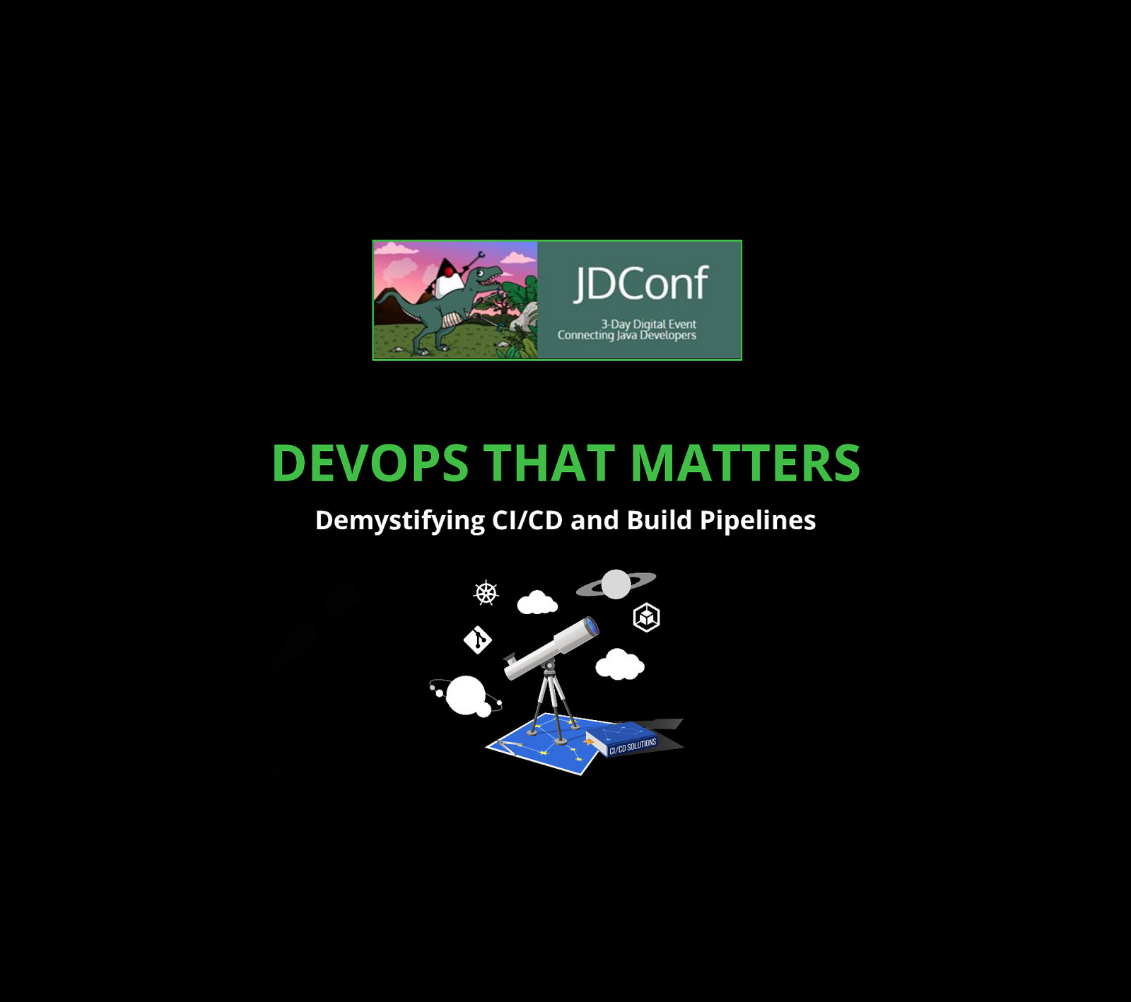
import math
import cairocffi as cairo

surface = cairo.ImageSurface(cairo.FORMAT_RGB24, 1131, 1002)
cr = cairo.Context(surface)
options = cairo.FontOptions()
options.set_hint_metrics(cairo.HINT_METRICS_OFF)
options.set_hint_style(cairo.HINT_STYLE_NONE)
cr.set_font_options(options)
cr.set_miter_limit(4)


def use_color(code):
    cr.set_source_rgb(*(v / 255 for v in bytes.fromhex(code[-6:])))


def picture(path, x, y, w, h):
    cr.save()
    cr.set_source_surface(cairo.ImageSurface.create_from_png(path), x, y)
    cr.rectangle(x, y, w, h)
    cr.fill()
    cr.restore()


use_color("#000000")
cr.paint()
picture("img1.png", 272, 239, 588, 538)
surface.write_to_png("result.png")
